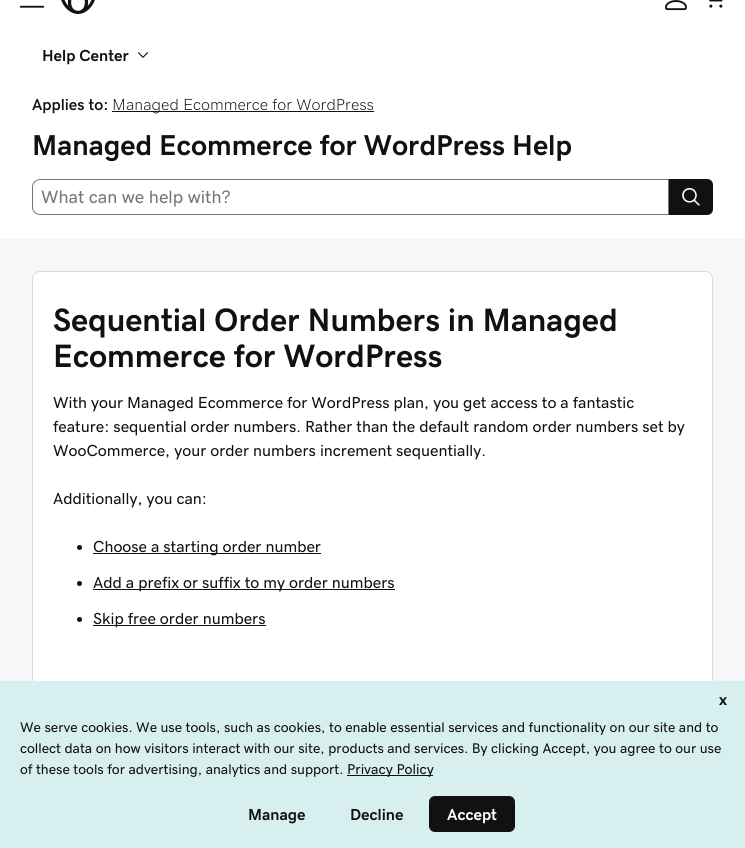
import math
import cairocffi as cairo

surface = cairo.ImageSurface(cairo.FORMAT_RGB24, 745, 848)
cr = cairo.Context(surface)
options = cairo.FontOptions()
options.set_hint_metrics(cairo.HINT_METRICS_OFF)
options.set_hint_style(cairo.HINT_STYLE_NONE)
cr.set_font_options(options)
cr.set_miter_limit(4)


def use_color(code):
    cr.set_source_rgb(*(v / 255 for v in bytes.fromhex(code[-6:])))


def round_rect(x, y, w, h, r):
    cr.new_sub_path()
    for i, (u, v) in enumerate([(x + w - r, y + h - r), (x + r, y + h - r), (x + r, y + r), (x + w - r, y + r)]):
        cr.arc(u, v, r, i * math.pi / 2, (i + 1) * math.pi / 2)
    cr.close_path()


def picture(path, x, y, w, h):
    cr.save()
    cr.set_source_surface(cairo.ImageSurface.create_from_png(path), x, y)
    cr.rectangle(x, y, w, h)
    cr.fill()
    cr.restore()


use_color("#ffffff")
cr.paint()
picture("img1.png", 19, 5, 26, 3)
picture("img2.png", 61, 0, 34, 14)
picture("img3.png", 665, 0, 22, 11)
picture("img4.png", 709, 0, 14, 8)
cr.select_font_face("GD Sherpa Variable", cairo.FONT_SLANT_NORMAL, cairo.FONT_WEIGHT_BOLD)
cr.set_font_size(16)
use_color("#111111")
cr.move_to(42, 61)
cr.show_text("Help Center")
picture("img5.png", 138, 52, 10, 6)
cr.select_font_face("GD Sherpa Variable SemiBold")
cr.move_to(32, 110)
cr.show_text("Applies to:")
cr.rectangle(112, 111, 262, 1)
cr.fill()
cr.select_font_face("GD Sherpa Variable ExtraLight")
cr.move_to(112, 110)
cr.show_text("Managed Ecommerce for WordPress")
cr.select_font_face("GD Sherpa Variable", cairo.FONT_SLANT_NORMAL, cairo.FONT_WEIGHT_BOLD)
cr.set_font_size(28.8)
cr.move_to(32, 155)
cr.show_text("Managed Ecommerce for WordPress Help")
cr.new_path()
cr.move_to(40, 179.5)
cr.line_to(668.5, 179.5)
cr.line_to(668.5, 214.5)
cr.line_to(40, 214.5)
cr.curve_to(36, 214.5, 32.5, 211, 32.5, 207)
cr.line_to(32.5, 187)
cr.curve_to(32.5, 183, 36, 179.5, 40, 179.5)
cr.close_path()
use_color("#767676")
cr.set_line_width(1)
cr.stroke()
cr.select_font_face("GD Sherpa Variable")
cr.set_font_size(18)
cr.move_to(41, 203)
cr.show_text("What can we help with?")
use_color("#111111")
cr.new_path()
cr.move_to(669, 179)
cr.line_to(707, 179)
cr.curve_to(710.5, 179, 713, 181.5, 713, 185)
cr.line_to(713, 209)
cr.curve_to(713, 212.5, 710.5, 215, 707, 215)
cr.line_to(669, 215)
cr.close_path()
cr.fill()
picture("img6.png", 682, 188, 18, 18)
use_color("#f5f7f8")
cr.rectangle(0, 239, 745, 442)
cr.fill()
use_color("#ffffff")
round_rect(32.5, 271.5, 680, 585, 7.5)
cr.fill_preserve()
use_color("#d4dbe0")
cr.stroke()
cr.select_font_face("GD Sherpa Variable ExtraBold")
cr.set_font_size(32.4)
use_color("#111111")
cr.move_to(53, 331)
cr.show_text("Sequential Order Numbers in Managed")
cr.move_to(53, 367)
cr.show_text("Ecommerce for WordPress")
cr.select_font_face("GD Sherpa Variable")
cr.set_font_size(16)
cr.move_to(53, 408)
cr.show_text("With your Managed Ecommerce for WordPress plan, you get access to a fantastic")
cr.move_to(53, 432)
cr.show_text("feature: sequential order numbers. Rather than the default random order numbers set by")
cr.move_to(53, 456)
cr.show_text("WooCommerce, your order numbers increment sequentially.")
cr.move_to(53, 504)
cr.show_text("Additionally, you can:")
cr.new_path()
cr.arc(79.5, 547.5, 2.5, 0, 2 * math.pi)
cr.fill()
cr.rectangle(93, 553, 228, 1)
cr.fill()
cr.move_to(93, 552)
cr.show_text("Choose a starting order number")
cr.new_path()
cr.arc(79.5, 583.5, 2.5, 0, 2 * math.pi)
cr.fill()
cr.rectangle(93, 589, 302, 1)
cr.fill()
cr.move_to(93, 588)
cr.show_text("Add a prefix or suffix to my order numbers")
cr.new_path()
cr.arc(79.5, 619.5, 2.5, 0, 2 * math.pi)
cr.fill()
cr.rectangle(93, 625, 173, 1)
cr.fill()
cr.move_to(93, 624)
cr.show_text("Skip free order numbers")
use_color("#d8efef")
cr.rectangle(0, 681, 745, 167)
cr.fill()
cr.select_font_face("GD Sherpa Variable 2", cairo.FONT_SLANT_NORMAL, cairo.FONT_WEIGHT_BOLD)
use_color("#111111")
cr.move_to(719, 705)
cr.show_text("x")
cr.select_font_face("GD Sherpa Variable")
cr.set_font_size(14)
cr.move_to(20, 732)
cr.show_text("We serve cookies. We use tools, such as cookies, to enable essential services and functionality on our site and to")
cr.move_to(20, 753)
cr.show_text("collect data on how visitors interact with our site, products and services. By clicking Accept, you agree to our use")
cr.move_to(20, 774)
cr.show_text("of these tools for advertising, analytics and support.")
cr.rectangle(347, 775, 86, 1)
cr.fill()
cr.set_font_size(14.25)
cr.move_to(347, 774)
cr.show_text("Privacy Policy")
cr.select_font_face("GD Sherpa Variable 2", cairo.FONT_SLANT_NORMAL, cairo.FONT_WEIGHT_BOLD)
cr.set_font_size(16)
cr.move_to(248, 820)
cr.show_text("Manage")
cr.move_to(350, 820)
cr.show_text("Decline")
round_rect(429, 796, 86, 36, 6)
cr.fill()
use_color("#ffffff")
cr.move_to(447, 820)
cr.show_text("Accept")
surface.write_to_png("result.png")
